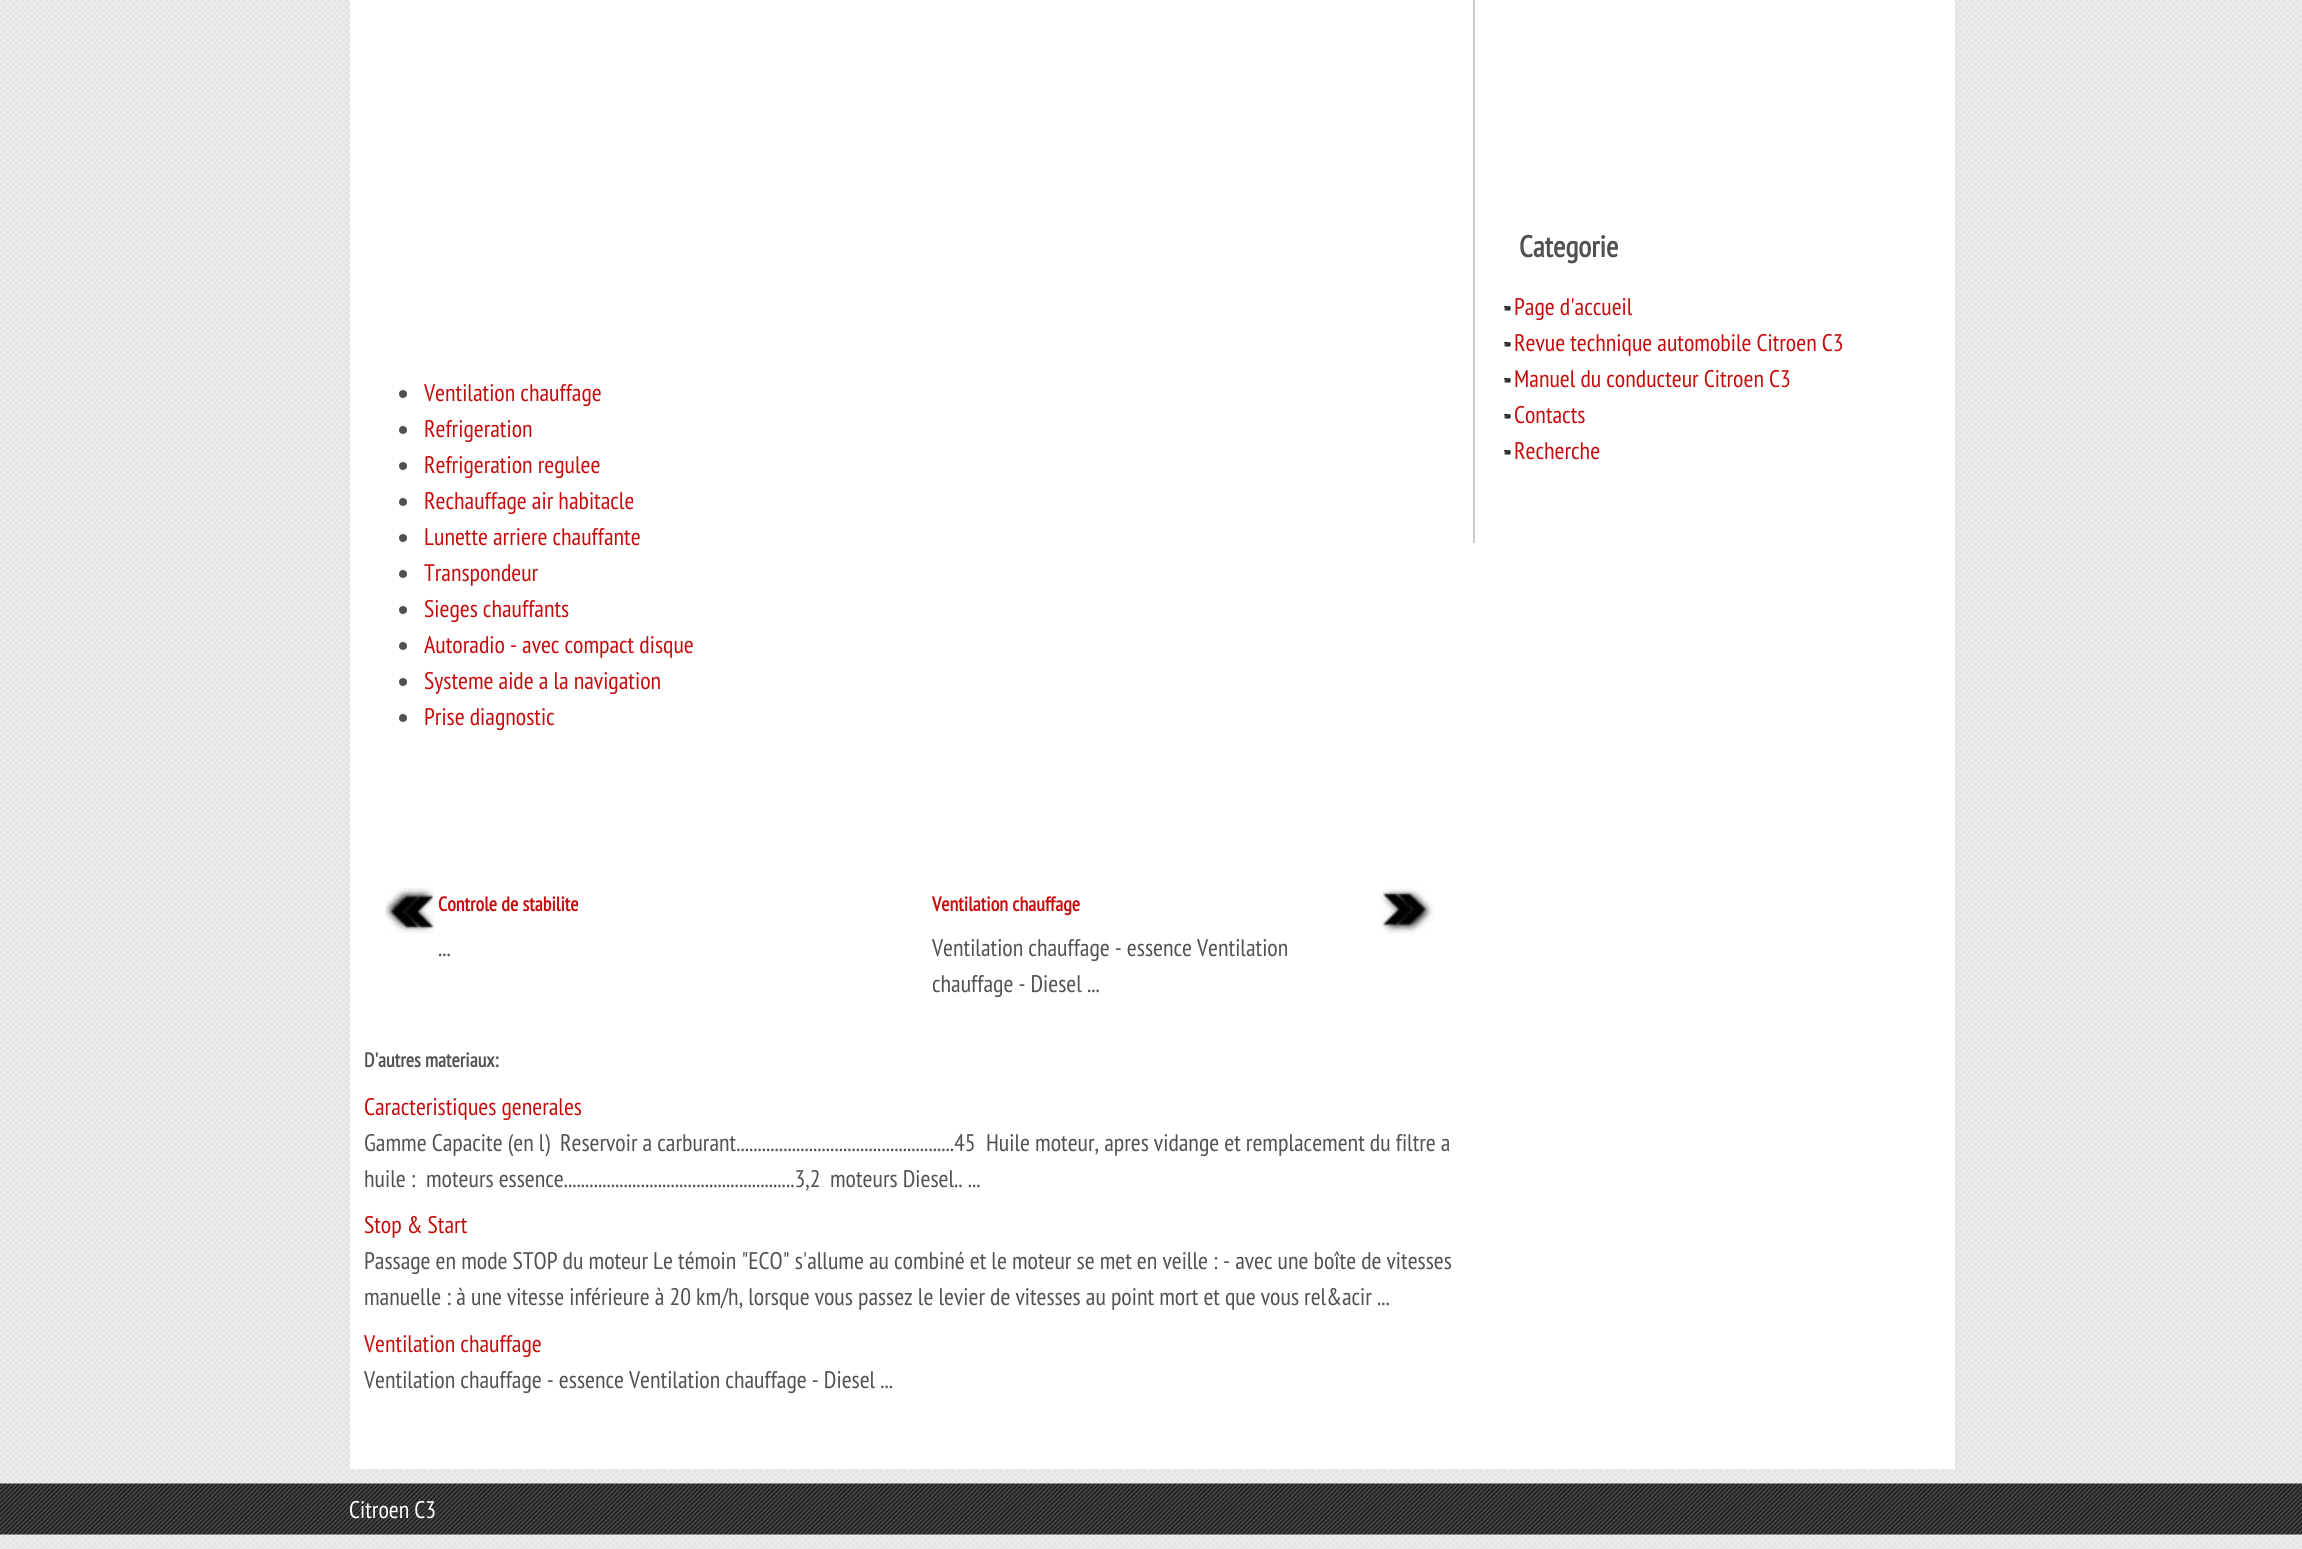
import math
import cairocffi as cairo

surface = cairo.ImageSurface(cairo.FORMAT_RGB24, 2302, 1549)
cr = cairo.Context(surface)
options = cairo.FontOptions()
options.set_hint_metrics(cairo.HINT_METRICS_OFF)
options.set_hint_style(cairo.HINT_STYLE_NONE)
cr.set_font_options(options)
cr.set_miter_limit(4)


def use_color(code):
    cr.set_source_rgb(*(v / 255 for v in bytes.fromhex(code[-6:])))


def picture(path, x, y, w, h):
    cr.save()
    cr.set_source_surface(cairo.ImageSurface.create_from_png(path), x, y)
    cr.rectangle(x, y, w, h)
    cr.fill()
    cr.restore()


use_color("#ffffff")
cr.paint()
picture("img1.png", 0, 0, 2302, 1549)
use_color("#ffffff")
cr.rectangle(350, 0, 1605, 1469)
cr.fill()
use_color("#cccccc")
cr.rectangle(1473, 0, 2, 543)
cr.fill()
cr.select_font_face("PT Sans Narrow", cairo.FONT_SLANT_NORMAL, cairo.FONT_WEIGHT_BOLD)
cr.set_font_size(30)
use_color("#525253")
cr.move_to(1519, 257)
cr.show_text("Categorie")
picture("img2.png", 1504, 306, 7, 5)
cr.select_font_face("PT Sans Narrow")
cr.set_font_size(24)
use_color("#c60d0d")
cr.move_to(1514, 315)
cr.show_text("Page d'accueil")
picture("img2.png", 1504, 342, 7, 5)
cr.move_to(1514, 351)
cr.show_text("Revue technique automobile Citroen C3")
picture("img2.png", 1504, 378, 7, 5)
cr.move_to(1514, 387)
cr.show_text("Manuel du conducteur Citroen C3")
picture("img2.png", 1504, 414, 7, 5)
cr.move_to(1514, 423)
cr.show_text("Contacts")
picture("img2.png", 1504, 450, 7, 5)
cr.move_to(1514, 459)
cr.show_text("Recherche")
use_color("#525253")
cr.new_path()
cr.arc(403, 394, 4, 0, 2 * math.pi)
cr.fill()
use_color("#c60d0d")
cr.move_to(424, 401)
cr.show_text("Ventilation chauffage")
use_color("#525253")
cr.new_path()
cr.arc(403, 430, 4, 0, 2 * math.pi)
cr.fill()
use_color("#c60d0d")
cr.move_to(424, 437)
cr.show_text("Refrigeration")
use_color("#525253")
cr.new_path()
cr.arc(403, 466, 4, 0, 2 * math.pi)
cr.fill()
use_color("#c60d0d")
cr.move_to(424, 473)
cr.show_text("Refrigeration regulee")
use_color("#525253")
cr.new_path()
cr.arc(403, 502, 4, 0, 2 * math.pi)
cr.fill()
use_color("#c60d0d")
cr.move_to(424, 509)
cr.show_text("Rechauffage air habitacle")
use_color("#525253")
cr.new_path()
cr.arc(403, 538, 4, 0, 2 * math.pi)
cr.fill()
use_color("#c60d0d")
cr.move_to(424, 545)
cr.show_text("Lunette arriere chauffante")
use_color("#525253")
cr.new_path()
cr.arc(403, 574, 4, 0, 2 * math.pi)
cr.fill()
use_color("#c60d0d")
cr.move_to(424, 581)
cr.show_text("Transpondeur")
use_color("#525253")
cr.new_path()
cr.arc(403, 610, 4, 0, 2 * math.pi)
cr.fill()
use_color("#c60d0d")
cr.move_to(424, 617)
cr.show_text("Sieges chauffants")
use_color("#525253")
cr.new_path()
cr.arc(403, 646, 4, 0, 2 * math.pi)
cr.fill()
use_color("#c60d0d")
cr.move_to(424, 653)
cr.show_text("Autoradio - avec compact disque")
use_color("#525253")
cr.new_path()
cr.arc(403, 682, 4, 0, 2 * math.pi)
cr.fill()
use_color("#c60d0d")
cr.move_to(424, 689)
cr.show_text("Systeme aide a la navigation")
use_color("#525253")
cr.new_path()
cr.arc(403, 718, 4, 0, 2 * math.pi)
cr.fill()
use_color("#c60d0d")
cr.move_to(424, 725)
cr.show_text("Prise diagnostic")
picture("img3.png", 385, 887, 49, 47)
cr.select_font_face("PT Sans Narrow", cairo.FONT_SLANT_NORMAL, cairo.FONT_WEIGHT_BOLD)
cr.set_font_size(20)
cr.move_to(438, 911)
cr.show_text("Controle de stabilite")
cr.select_font_face("PT Sans Narrow")
cr.set_font_size(24)
use_color("#525253")
cr.move_to(438, 956)
cr.show_text("...")
cr.select_font_face("PT Sans Narrow", cairo.FONT_SLANT_NORMAL, cairo.FONT_WEIGHT_BOLD)
cr.set_font_size(20)
use_color("#c60d0d")
cr.move_to(932, 911)
cr.show_text("Ventilation chauffage")
picture("img4.png", 1379, 886, 55, 49)
cr.select_font_face("PT Sans Narrow")
cr.set_font_size(24)
use_color("#525253")
cr.move_to(932, 956)
cr.show_text("Ventilation chauffage - essence Ventilation")
cr.move_to(932, 992)
cr.show_text("chauffage - Diesel ...")
cr.select_font_face("PT Sans Narrow", cairo.FONT_SLANT_NORMAL, cairo.FONT_WEIGHT_BOLD)
cr.set_font_size(20)
cr.move_to(364, 1067)
cr.show_text("D'autres materiaux:")
cr.select_font_face("PT Sans Narrow")
cr.set_font_size(24)
use_color("#c60d0d")
cr.move_to(364, 1115)
cr.show_text("Caracteristiques generales")
use_color("#525253")
cr.move_to(364, 1151)
cr.show_text("Gamme Capacite (en l)")
cr.move_to(560, 1151)
cr.show_text("Reservoir a carburant...................................................45")
cr.move_to(986, 1151)
cr.show_text("Huile moteur, apres vidange et remplacement du filtre a")
cr.move_to(364, 1187)
cr.show_text("huile :")
cr.move_to(426, 1187)
cr.show_text("moteurs essence......................................................3,2")
cr.move_to(830, 1187)
cr.show_text("moteurs Diesel.. ...")
use_color("#c60d0d")
cr.move_to(364, 1233)
cr.show_text("Stop & Start")
use_color("#525253")
cr.move_to(364, 1269)
cr.show_text("Passage en mode STOP du moteur Le témoin \"ECO\" s'allume au combiné et le moteur se met en veille : - avec une boîte de vitesses")
cr.move_to(364, 1305)
cr.show_text("manuelle : à une vitesse inférieure à 20 km/h, lorsque vous passez le levier de vitesses au point mort et que vous rel&acir ...")
use_color("#c60d0d")
cr.move_to(364, 1352)
cr.show_text("Ventilation chauffage")
use_color("#525253")
cr.move_to(364, 1388)
cr.show_text("Ventilation chauffage - essence Ventilation chauffage - Diesel ...")
picture("img5.png", 0, 1483, 2302, 52)
use_color("#ffffff")
cr.move_to(349, 1518)
cr.show_text("Citroen C3")
surface.write_to_png("result.png")
